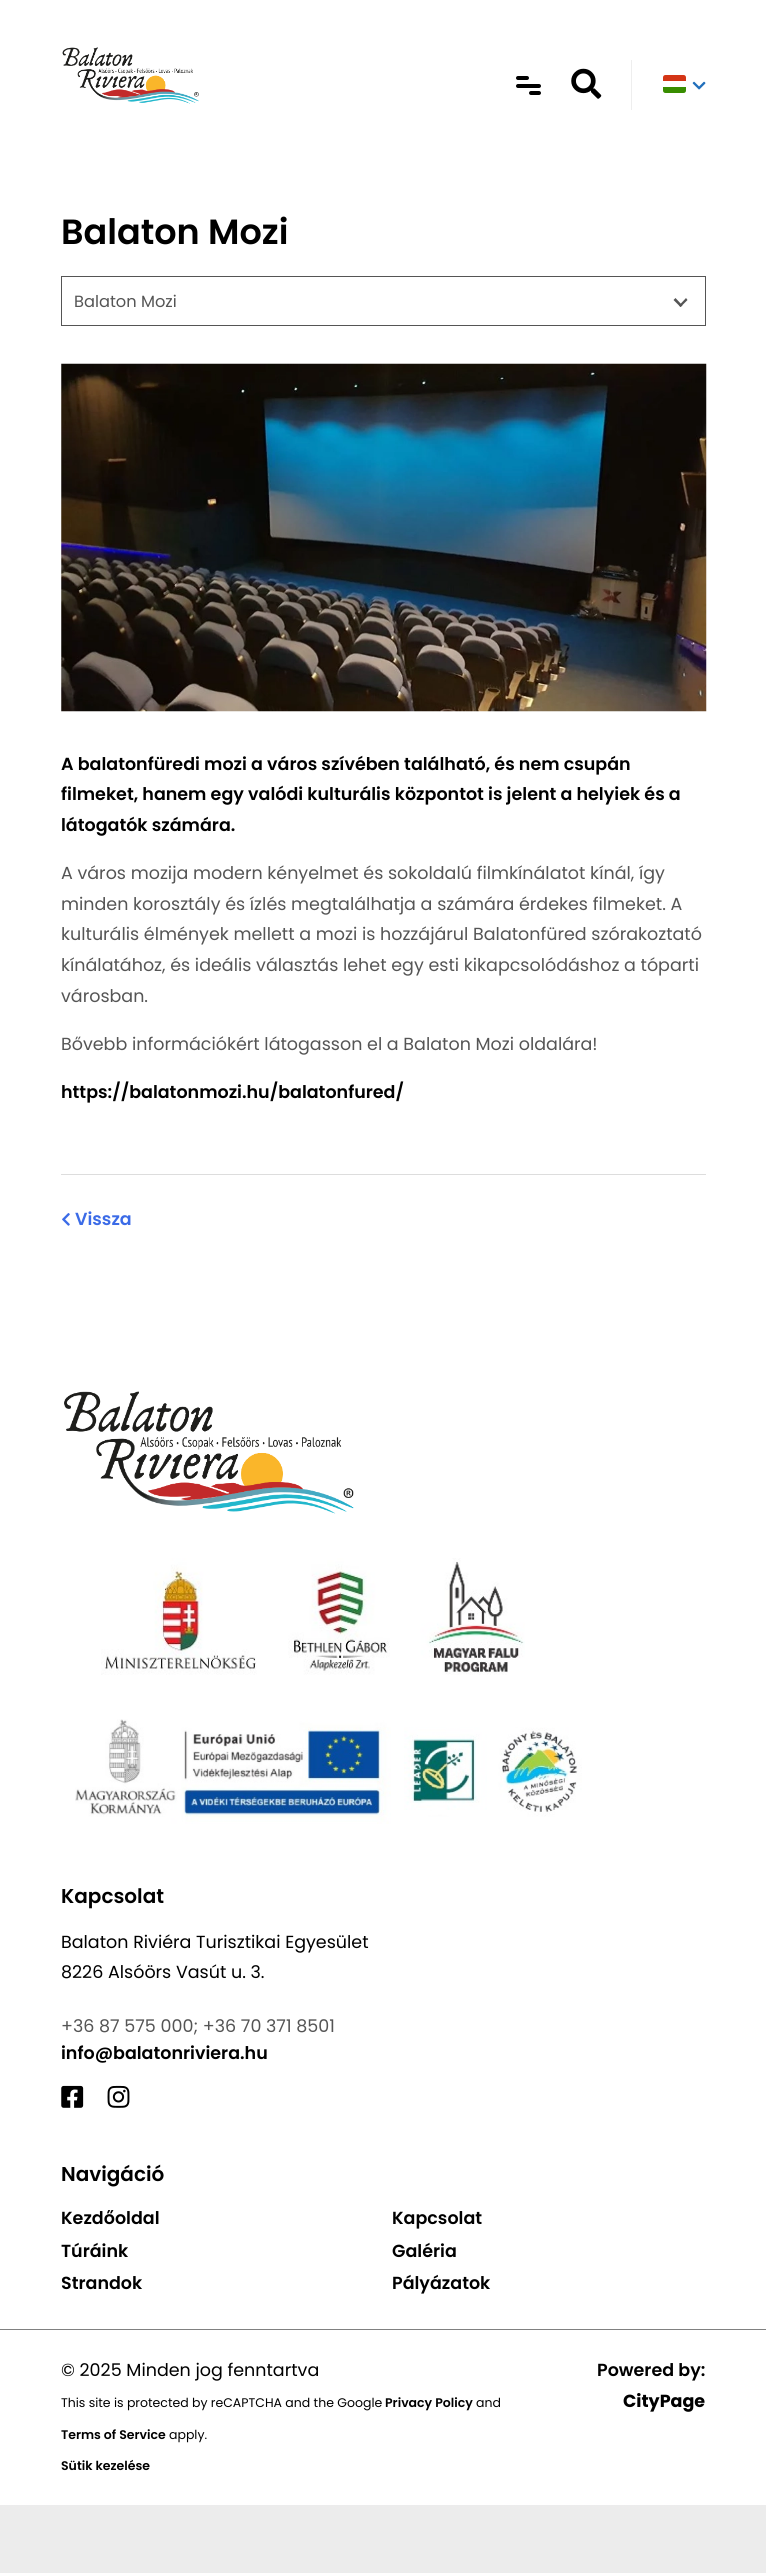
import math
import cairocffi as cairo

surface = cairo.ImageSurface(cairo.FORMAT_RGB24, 766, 2573)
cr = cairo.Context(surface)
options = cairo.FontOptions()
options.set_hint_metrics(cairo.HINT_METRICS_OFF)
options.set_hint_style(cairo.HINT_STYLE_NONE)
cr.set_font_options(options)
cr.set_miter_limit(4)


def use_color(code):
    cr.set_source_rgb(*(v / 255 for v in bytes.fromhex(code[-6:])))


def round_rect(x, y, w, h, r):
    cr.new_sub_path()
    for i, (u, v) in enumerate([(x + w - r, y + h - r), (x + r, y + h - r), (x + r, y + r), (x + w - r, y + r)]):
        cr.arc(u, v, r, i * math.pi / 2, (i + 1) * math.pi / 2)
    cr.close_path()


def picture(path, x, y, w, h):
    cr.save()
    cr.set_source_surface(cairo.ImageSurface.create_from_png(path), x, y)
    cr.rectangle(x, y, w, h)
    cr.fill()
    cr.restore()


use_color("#ececec")
cr.paint()
use_color("#ffffff")
cr.rectangle(0, 0, 766, 2505)
cr.fill()
picture("img1.png", 62, 47, 137, 57)
use_color("#000000")
round_rect(516, 76, 13, 4, 2)
cr.fill()
round_rect(516, 84, 25, 4, 2)
cr.fill()
round_rect(529, 91, 12, 4, 2)
cr.fill()
picture("img2.png", 571, 68, 31, 31)
use_color("#eeeeee")
cr.rectangle(631, 60, 1, 50)
cr.fill()
use_color("#388d00")
cr.new_path()
cr.move_to(663, 87)
cr.line_to(686, 87)
cr.line_to(686, 90.5)
cr.curve_to(686, 92, 685, 93, 683.5, 93)
cr.line_to(665.5, 93)
cr.curve_to(664, 93, 663, 92, 663, 90.5)
cr.close_path()
cr.fill()
use_color("#d43516")
cr.new_path()
cr.move_to(665.5, 75)
cr.line_to(683.5, 75)
cr.curve_to(685, 75, 686, 76, 686, 77.5)
cr.line_to(686, 81)
cr.line_to(663, 81)
cr.line_to(663, 77.5)
cr.curve_to(663, 76, 664, 75, 665.5, 75)
cr.close_path()
cr.fill()
picture("img3.png", 692, 81, 14, 9)
cr.select_font_face("Poppins SemiBold")
cr.set_font_size(35)
use_color("#000000")
cr.move_to(61, 244)
cr.show_text("Balaton Mozi")
cr.rectangle(61.5, 276.5, 644, 49)
use_color("#555555")
cr.set_line_width(1)
cr.stroke()
cr.select_font_face("Poppins")
cr.set_font_size(16.25)
cr.move_to(74, 307)
cr.show_text("Balaton Mozi")
cr.new_path()
cr.move_to(686, 298)
cr.line_to(687.5, 300)
cr.line_to(680.5, 307)
cr.line_to(679, 305.5)
cr.close_path()
cr.fill()
cr.new_path()
cr.move_to(675.5, 298)
cr.line_to(682.5, 305.5)
cr.line_to(680.5, 307)
cr.line_to(673.5, 300)
cr.close_path()
cr.fill()
picture("img4.png", 61, 363, 646, 349)
cr.select_font_face("Poppins SemiBold")
cr.set_font_size(17.5)
use_color("#000000")
cr.move_to(61, 770)
cr.show_text("A balatonfüredi mozi a város szívében található, és nem csupán")
cr.move_to(61, 800)
cr.show_text("filmeket, hanem egy valódi kulturális központot is jelent a helyiek és a")
cr.move_to(61, 831)
cr.show_text("látogatók számára.")
cr.select_font_face("Poppins")
use_color("#555555")
cr.move_to(61, 879)
cr.show_text("A város mozija modern kényelmet és sokoldalú filmkínálatot kínál, így")
cr.move_to(61, 910)
cr.show_text("minden korosztály és ízlés megtalálhatja a számára érdekes filmeket. A")
cr.move_to(61, 940)
cr.show_text("kulturális élmények mellett a mozi is hozzájárul Balatonfüred szórakoztató")
cr.move_to(61, 971)
cr.show_text("kínálatához, és ideális választás lehet egy esti kikapcsolódáshoz a tóparti")
cr.move_to(61, 1002)
cr.show_text("városban.")
cr.move_to(61, 1050)
cr.show_text("Bővebb információkért látogasson el a Balaton Mozi oldalára!")
cr.select_font_face("Poppins SemiBold")
use_color("#000000")
cr.move_to(61, 1098)
cr.show_text("https://balatonmozi.hu/balatonfured/")
use_color("#dddddd")
cr.rectangle(61, 1174, 645, 1)
cr.fill()
picture("img5.png", 62, 1213, 8, 13)
use_color("#3b6be7")
cr.move_to(75, 1225)
cr.show_text("Vissza")
picture("img6.png", 64, 1391, 290, 123)
picture("img7.png", 101, 1558, 424, 117)
picture("img8.png", 75, 1719, 507, 105)
cr.set_font_size(20)
use_color("#000000")
cr.move_to(61, 1903)
cr.show_text("Kapcsolat")
cr.select_font_face("Poppins")
cr.set_font_size(17.5)
cr.move_to(61, 1948)
cr.show_text("Balaton Riviéra Turisztikai Egyesület")
cr.move_to(61, 1978)
cr.show_text("8226 Alsóörs Vasút u. 3.")
use_color("#555555")
cr.move_to(61, 2032)
cr.show_text("+36 87 575 000; +36 70 371 8501")
cr.select_font_face("Poppins SemiBold")
use_color("#000000")
cr.move_to(61, 2059)
cr.show_text("info@balatonriviera.hu")
picture("img9.png", 61, 2085, 23, 23)
picture("img10.png", 107, 2085, 23, 23)
cr.set_font_size(20)
cr.move_to(61, 2181)
cr.show_text("Navigáció")
cr.set_font_size(17.5)
cr.move_to(61, 2224)
cr.show_text("Kezdőoldal")
cr.move_to(392, 2224)
cr.show_text("Kapcsolat")
cr.move_to(61, 2257)
cr.show_text("Túráink")
cr.move_to(392, 2257)
cr.show_text("Galéria")
cr.move_to(61, 2289)
cr.show_text("Strandok")
cr.move_to(392, 2289)
cr.show_text("Pályázatok")
use_color("#808080")
cr.rectangle(0, 2329, 766, 1)
cr.fill()
cr.select_font_face("Poppins")
use_color("#000000")
cr.move_to(61, 2376)
cr.show_text("© 2025 Minden jog fenntartva")
cr.set_font_size(12.5)
cr.move_to(61, 2407)
cr.show_text("This site is protected by reCAPTCHA and the Google")
cr.select_font_face("Poppins SemiBold")
cr.move_to(385, 2407)
cr.show_text("Privacy Policy")
cr.select_font_face("Poppins")
cr.move_to(476, 2407)
cr.show_text("and")
cr.select_font_face("Poppins SemiBold")
cr.move_to(61, 2439)
cr.show_text("Terms of Service")
cr.select_font_face("Poppins")
cr.move_to(169, 2439)
cr.show_text("apply.")
cr.select_font_face("Poppins SemiBold")
cr.move_to(61, 2470)
cr.show_text("Sütik kezelése")
cr.set_font_size(17.5)
cr.move_to(597, 2376)
cr.show_text("Powered by:")
cr.select_font_face("Poppins", cairo.FONT_SLANT_NORMAL, cairo.FONT_WEIGHT_BOLD)
cr.move_to(623, 2407)
cr.show_text("CityPage")
surface.write_to_png("result.png")
